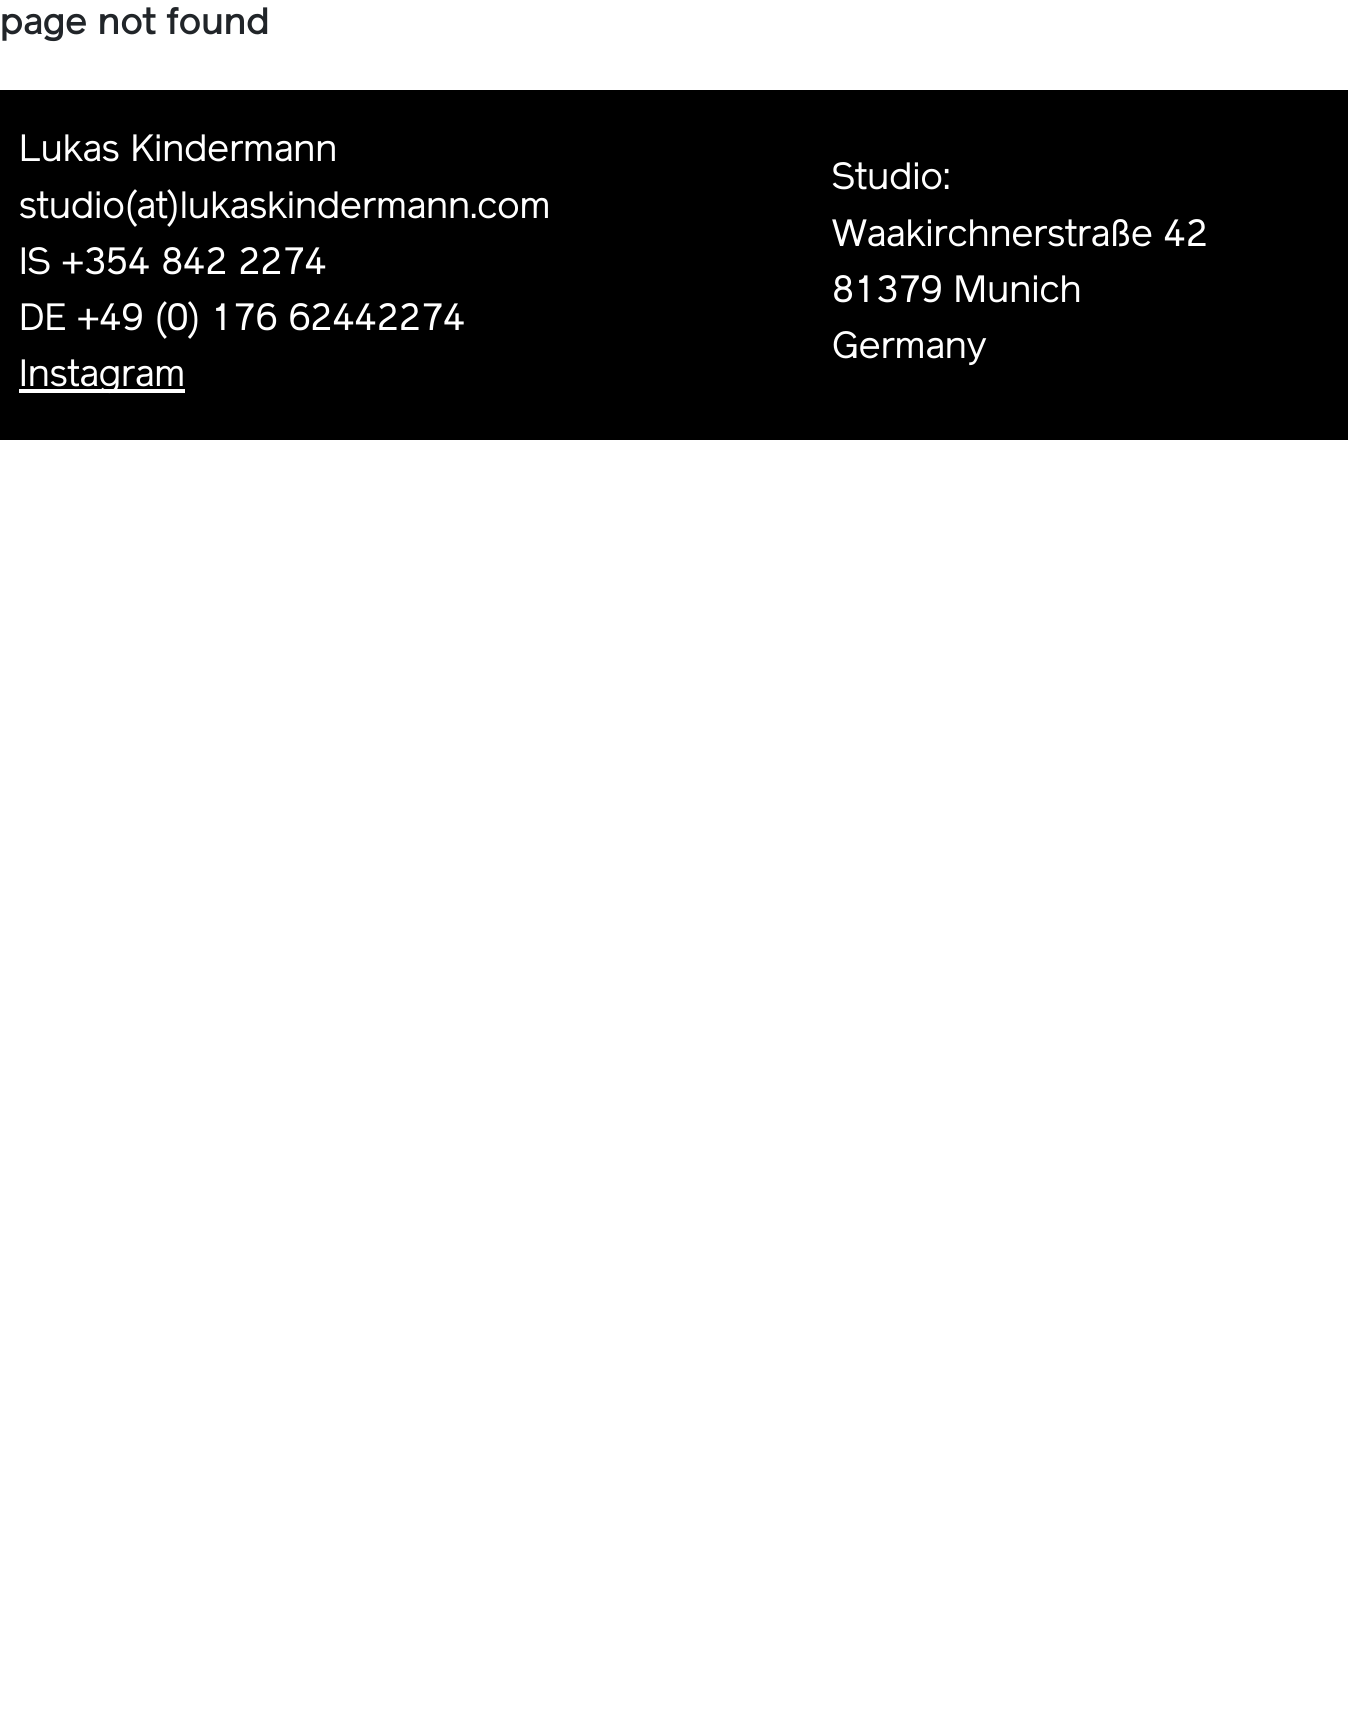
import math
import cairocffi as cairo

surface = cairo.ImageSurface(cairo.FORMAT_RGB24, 1348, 1724)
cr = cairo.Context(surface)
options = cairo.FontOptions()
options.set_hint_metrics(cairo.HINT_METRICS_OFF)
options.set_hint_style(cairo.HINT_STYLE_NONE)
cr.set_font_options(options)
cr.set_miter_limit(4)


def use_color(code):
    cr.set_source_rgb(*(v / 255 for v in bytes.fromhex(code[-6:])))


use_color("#ffffff")
cr.paint()
cr.select_font_face("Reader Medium")
cr.set_font_size(37.5)
use_color("#212529")
cr.move_to(0, 34)
cr.show_text("page not found")
use_color("#000000")
cr.rectangle(0, 90, 1348, 350)
cr.fill()
cr.select_font_face("Reader")
use_color("#ffffff")
cr.move_to(19, 161)
cr.show_text("Lukas Kindermann")
cr.move_to(19, 218)
cr.show_text("studio(at)lukaskindermann.com")
cr.move_to(19, 274)
cr.show_text("IS +354 842 2274")
cr.move_to(19, 330)
cr.show_text("DE +49 (0) 176 62442274")
cr.rectangle(19, 389, 166, 4)
cr.fill()
cr.move_to(19, 386)
cr.show_text("Instagram")
cr.move_to(832, 189)
cr.show_text("Studio:")
cr.move_to(832, 246)
cr.show_text("Waakirchnerstraße 42")
cr.move_to(832, 302)
cr.show_text("81379 Munich")
cr.move_to(832, 358)
cr.show_text("Germany")
surface.write_to_png("result.png")
